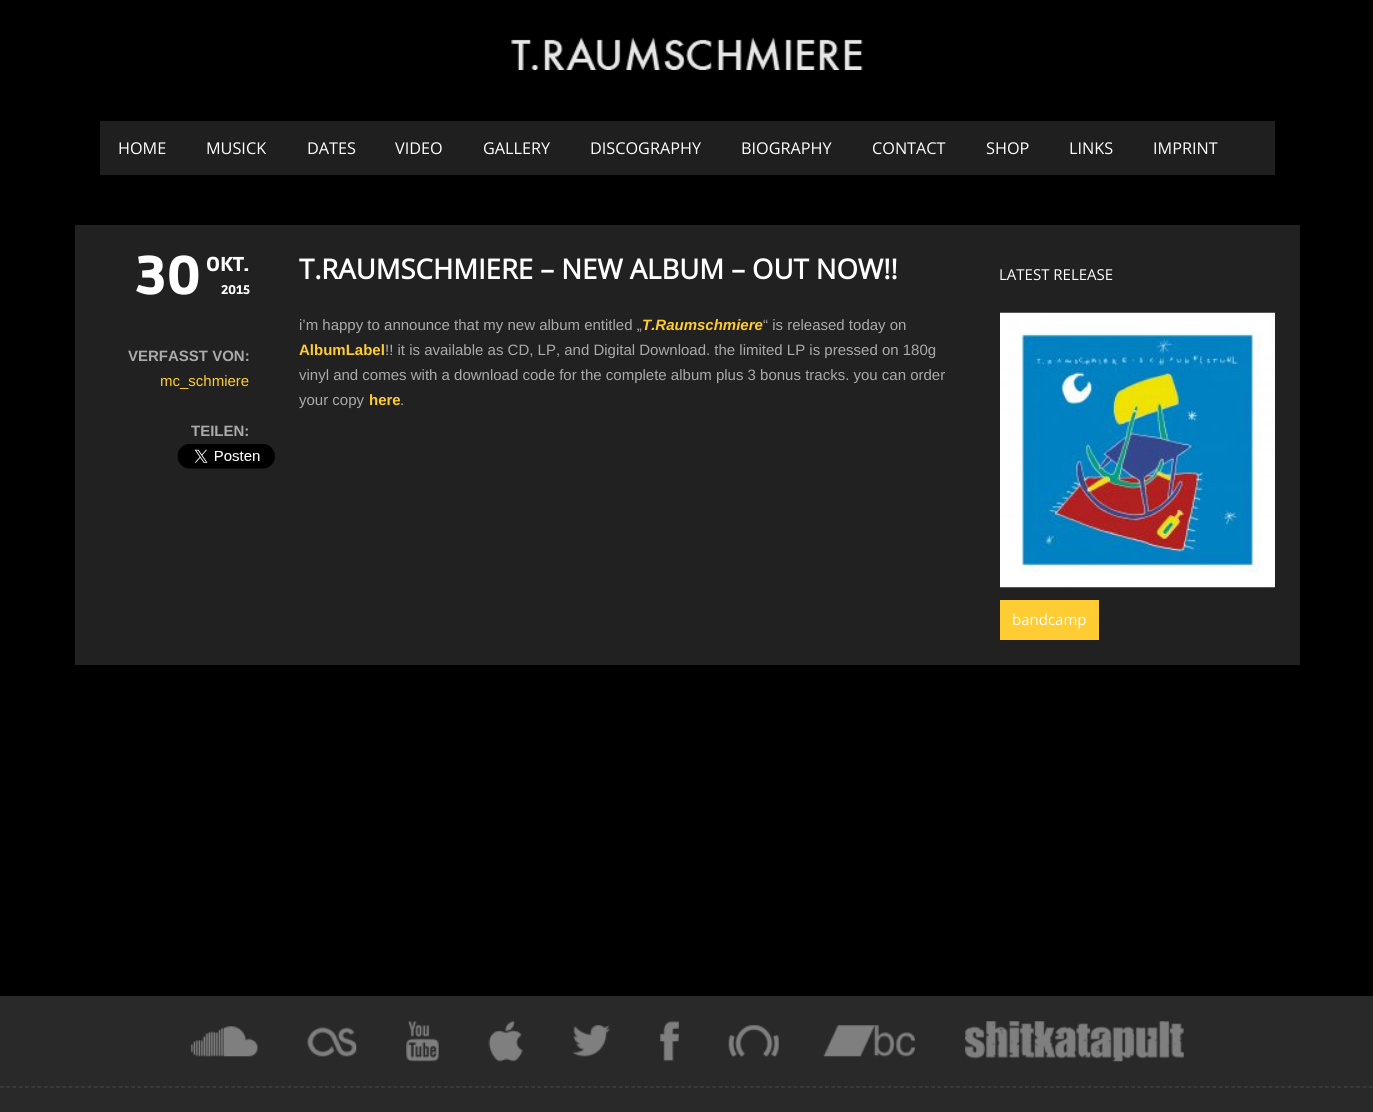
import math
import cairocffi as cairo

surface = cairo.ImageSurface(cairo.FORMAT_RGB24, 1373, 1112)
cr = cairo.Context(surface)
options = cairo.FontOptions()
options.set_hint_metrics(cairo.HINT_METRICS_OFF)
options.set_hint_style(cairo.HINT_STYLE_NONE)
cr.set_font_options(options)
cr.set_miter_limit(4)


def use_color(code):
    cr.set_source_rgb(*(v / 255 for v in bytes.fromhex(code[-6:])))


def picture(path, x, y, w, h):
    cr.save()
    cr.set_source_surface(cairo.ImageSurface.create_from_png(path), x, y)
    cr.rectangle(x, y, w, h)
    cr.fill()
    cr.restore()


use_color("#000000")
cr.paint()
picture("img1.png", 511, 37, 352, 33)
use_color("#1f1f1f")
cr.rectangle(100, 121, 1175, 54)
cr.fill()
cr.select_font_face("Open Sans")
cr.set_font_size(16.25)
use_color("#ffffff")
cr.move_to(118, 154)
cr.show_text("HOME")
cr.move_to(206, 154)
cr.show_text("MUSICK")
cr.move_to(307, 154)
cr.show_text("DATES")
cr.move_to(395, 154)
cr.show_text("VIDEO")
cr.move_to(483, 154)
cr.show_text("GALLERY")
cr.move_to(590, 154)
cr.show_text("DISCOGRAPHY")
cr.move_to(741, 154)
cr.show_text("BIOGRAPHY")
cr.move_to(872, 154)
cr.show_text("CONTACT")
cr.move_to(986, 154)
cr.show_text("SHOP")
cr.move_to(1069, 154)
cr.show_text("LINKS")
cr.move_to(1153, 154)
cr.show_text("IMPRINT")
use_color("#212121")
cr.rectangle(75, 225, 1225, 440)
cr.fill()
cr.select_font_face("Ruda Black")
cr.set_font_size(54)
use_color("#ffffff")
cr.move_to(134, 294)
cr.show_text("30")
cr.set_font_size(20)
cr.move_to(206, 271)
cr.show_text("OKT.")
cr.set_font_size(12.5)
cr.move_to(221, 294)
cr.show_text("2015")
cr.select_font_face("Liberation Sans", cairo.FONT_SLANT_NORMAL, cairo.FONT_WEIGHT_BOLD)
cr.set_font_size(15)
use_color("#aaaaaa")
cr.move_to(128, 361)
cr.show_text("VERFASST VON:")
cr.select_font_face("Liberation Sans")
use_color("#ffcc33")
cr.move_to(160, 386)
cr.show_text("mc_schmiere")
cr.select_font_face("Liberation Sans", cairo.FONT_SLANT_NORMAL, cairo.FONT_WEIGHT_BOLD)
use_color("#aaaaaa")
cr.move_to(191, 436)
cr.show_text("TEILEN:")
picture("img2.png", 177, 444, 98, 25)
cr.select_font_face("Open Sans", cairo.FONT_SLANT_NORMAL, cairo.FONT_WEIGHT_BOLD)
cr.set_font_size(27.5)
use_color("#ffffff")
cr.move_to(299, 279)
cr.show_text("T.RAUMSCHMIERE – NEW ALBUM – OUT NOW!!")
cr.select_font_face("Liberation Sans")
cr.set_font_size(15)
use_color("#aaaaaa")
cr.move_to(299, 330)
cr.show_text("i’m happy to announce that my new album entitled „")
cr.select_font_face("Liberation Sans", cairo.FONT_SLANT_ITALIC, cairo.FONT_WEIGHT_BOLD)
use_color("#ffcc33")
cr.move_to(642, 330)
cr.show_text("T.Raumschmiere")
cr.select_font_face("Liberation Sans")
use_color("#aaaaaa")
cr.move_to(763, 330)
cr.show_text("“ is released today on")
cr.select_font_face("Liberation Sans", cairo.FONT_SLANT_NORMAL, cairo.FONT_WEIGHT_BOLD)
use_color("#ffcc33")
cr.move_to(299, 355)
cr.show_text("AlbumLabel")
cr.select_font_face("Liberation Sans")
use_color("#aaaaaa")
cr.move_to(385, 355)
cr.show_text("!! it is available as CD, LP, and Digital Download. the limited LP is pressed on 180g")
cr.move_to(299, 380)
cr.show_text("vinyl and comes with a download code for the complete album plus 3 bonus tracks. you can order")
cr.move_to(299, 405)
cr.show_text("your copy")
cr.select_font_face("Liberation Sans", cairo.FONT_SLANT_NORMAL, cairo.FONT_WEIGHT_BOLD)
use_color("#ffcc33")
cr.move_to(369, 405)
cr.show_text("here")
cr.select_font_face("Liberation Sans")
use_color("#aaaaaa")
cr.move_to(400, 405)
cr.show_text(".")
cr.select_font_face("Open Sans")
use_color("#ffffff")
cr.move_to(999, 280)
cr.show_text("LATEST RELEASE")
picture("img3.png", 1000, 312, 275, 276)
use_color("#ffcc33")
cr.rectangle(1000, 600, 99, 40)
cr.fill()
use_color("#ffffff")
cr.move_to(1012, 625)
cr.show_text("bandcamp")
use_color("#292929")
cr.rectangle(0, 996, 1373, 116)
cr.fill()
cr.new_path()
cr.move_to(0, 1087)
cr.line_to(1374, 1087)
use_color("#444444")
cr.set_line_width(1.2)
cr.set_dash([3.75, 2.5])
cr.stroke()
picture("img4.png", 190, 1026, 68, 31)
picture("img5.png", 307, 1027, 50, 30)
picture("img6.png", 406, 1021, 33, 41)
picture("img7.png", 488, 1021, 35, 41)
picture("img8.png", 572, 1025, 38, 32)
picture("img9.png", 660, 1021, 19, 41)
picture("img10.png", 728, 1025, 51, 32)
picture("img11.png", 823, 1025, 92, 32)
picture("img12.png", 965, 1021, 219, 41)
surface.write_to_png("result.png")
